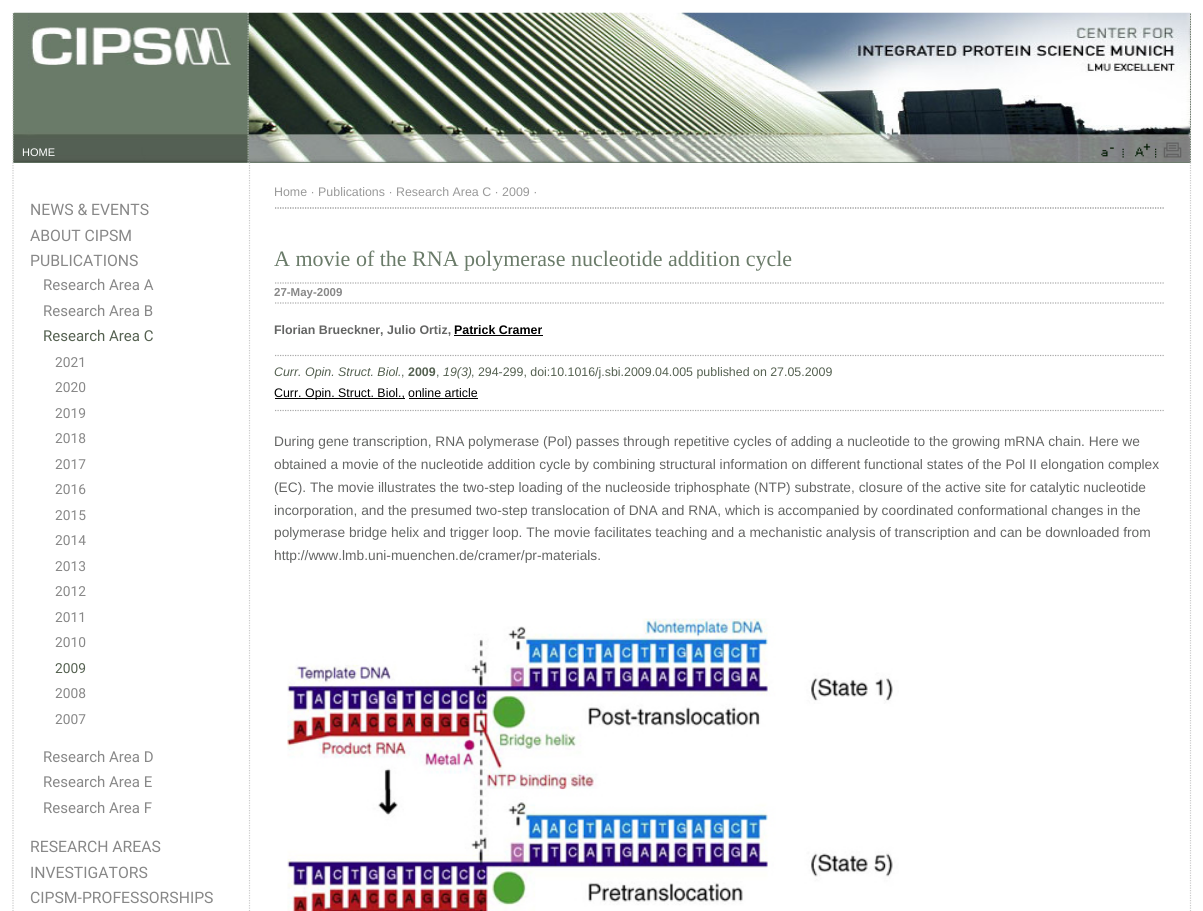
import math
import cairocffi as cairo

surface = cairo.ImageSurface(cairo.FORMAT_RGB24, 1203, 911)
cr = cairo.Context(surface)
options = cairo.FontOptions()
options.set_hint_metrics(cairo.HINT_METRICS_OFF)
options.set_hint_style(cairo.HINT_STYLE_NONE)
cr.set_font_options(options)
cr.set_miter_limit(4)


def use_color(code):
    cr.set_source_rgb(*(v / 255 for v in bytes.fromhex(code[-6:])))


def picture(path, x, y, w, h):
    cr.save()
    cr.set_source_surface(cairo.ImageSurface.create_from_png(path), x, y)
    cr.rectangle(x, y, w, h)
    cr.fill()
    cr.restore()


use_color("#ffffff")
cr.paint()
use_color("#6a7b69")
cr.rectangle(13, 13, 1178, 150)
cr.fill()
cr.save()
cr.rectangle(0, 13, 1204, 150)
cr.clip()
cr.new_path()
cr.move_to(248, 12.5)
cr.line_to(248, 165)
use_color("#cccccc")
cr.set_line_width(1.2)
cr.set_dash([1.25, 1.25])
cr.stroke()
cr.new_path()
cr.move_to(13, 12.5)
cr.line_to(13, 165)
cr.stroke()
cr.restore()
picture("img1.png", 13, 12, 235, 151)
cr.save()
cr.rectangle(0, 13, 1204, 150)
cr.clip()
cr.new_path()
cr.move_to(1190.5, 12.5)
cr.line_to(1190.5, 165)
use_color("#cccccc")
cr.set_line_width(1.2)
cr.set_dash([1.25, 1.25])
cr.stroke()
cr.restore()
picture("img2.png", 248, 12, 942, 151)
cr.select_font_face("Liberation Sans")
cr.set_font_size(11)
use_color("#ffffff")
cr.move_to(22, 156)
cr.show_text("HOME")
picture("img3.png", 1101, 147, 13, 10)
picture("img4.png", 1122, 148, 2, 10)
picture("img5.png", 1134, 143, 17, 14)
picture("img6.png", 1155, 148, 2, 10)
picture("img7.png", 1163, 142, 19, 16)
cr.new_path()
cr.move_to(13, 162.5)
cr.line_to(13, 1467.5)
use_color("#cccccc")
cr.set_line_width(1.2)
cr.set_dash([1.25, 1.25])
cr.stroke()
cr.select_font_face("Roboto")
cr.set_font_size(15.75)
use_color("#888888")
cr.move_to(30, 215)
cr.show_text("NEWS & EVENTS")
cr.move_to(30, 241)
cr.show_text("ABOUT CIPSM")
cr.move_to(30, 266)
cr.show_text("PUBLICATIONS")
cr.set_font_size(15)
cr.move_to(43, 290)
cr.show_text("Research Area A")
cr.move_to(43, 316)
cr.show_text("Research Area B")
use_color("#556151")
cr.move_to(43, 341)
cr.show_text("Research Area C")
cr.set_font_size(13.75)
use_color("#888888")
cr.move_to(55, 367)
cr.show_text("2021")
cr.move_to(55, 392)
cr.show_text("2020")
cr.move_to(55, 418)
cr.show_text("2019")
cr.move_to(55, 443)
cr.show_text("2018")
cr.move_to(55, 469)
cr.show_text("2017")
cr.move_to(55, 494)
cr.show_text("2016")
cr.move_to(55, 520)
cr.show_text("2015")
cr.move_to(55, 545)
cr.show_text("2014")
cr.move_to(55, 571)
cr.show_text("2013")
cr.move_to(55, 596)
cr.show_text("2012")
cr.move_to(55, 622)
cr.show_text("2011")
cr.move_to(55, 647)
cr.show_text("2010")
use_color("#556151")
cr.move_to(55, 673)
cr.show_text("2009")
use_color("#888888")
cr.move_to(55, 698)
cr.show_text("2008")
cr.move_to(55, 724)
cr.show_text("2007")
cr.set_font_size(15)
cr.move_to(43, 762)
cr.show_text("Research Area D")
cr.move_to(43, 787)
cr.show_text("Research Area E")
cr.move_to(43, 813)
cr.show_text("Research Area F")
cr.set_font_size(15.75)
cr.move_to(30, 852)
cr.show_text("RESEARCH AREAS")
cr.move_to(30, 878)
cr.show_text("INVESTIGATORS")
cr.move_to(30, 903)
cr.show_text("CIPSM-PROFESSORSHIPS")
cr.new_path()
cr.move_to(1190.5, 162.5)
cr.line_to(1190.5, 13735)
use_color("#cccccc")
cr.stroke()
cr.new_path()
cr.move_to(249.5, 162.5)
cr.line_to(249.5, 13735)
cr.stroke()
cr.new_path()
cr.move_to(275, 208)
cr.line_to(1165, 208)
use_color("#888888")
cr.stroke()
cr.select_font_face("Liberation Sans")
cr.set_font_size(12.4)
use_color("#999999")
cr.move_to(274, 196)
cr.show_text("Home · Publications · Research Area C · 2009 ·")
cr.select_font_face("Liberation Serif")
cr.set_font_size(22)
use_color("#6a7b69")
cr.move_to(274, 266)
cr.show_text("A movie of the RNA polymerase nucleotide addition cycle")
cr.new_path()
cr.move_to(275, 283)
cr.line_to(1165, 283)
use_color("#aaaaaa")
cr.stroke()
cr.new_path()
cr.move_to(275, 303)
cr.line_to(1165, 303)
cr.stroke()
cr.select_font_face("Liberation Sans", cairo.FONT_SLANT_NORMAL, cairo.FONT_WEIGHT_BOLD)
cr.set_font_size(11.5)
use_color("#888888")
cr.move_to(274, 296)
cr.show_text("27-May-2009")
cr.set_font_size(12.4)
use_color("#646564")
cr.move_to(274, 334)
cr.show_text("Florian Brueckner, Julio Ortiz,")
use_color("#000000")
cr.move_to(454, 334)
cr.show_text("Patrick Cramer")
cr.rectangle(454, 335, 89, 1)
cr.fill()
cr.new_path()
cr.move_to(275, 355.5)
cr.line_to(1165, 355.5)
use_color("#aaaaaa")
cr.stroke()
cr.new_path()
cr.move_to(275, 410.5)
cr.line_to(1165, 410.5)
cr.stroke()
cr.select_font_face("Liberation Sans", cairo.FONT_SLANT_ITALIC)
use_color("#556151")
cr.move_to(274, 376)
cr.show_text("Curr. Opin. Struct. Biol.")
cr.select_font_face("Liberation Sans")
cr.move_to(401, 376)
cr.show_text(",")
cr.select_font_face("Liberation Sans", cairo.FONT_SLANT_NORMAL, cairo.FONT_WEIGHT_BOLD)
cr.move_to(408, 376)
cr.show_text("2009")
cr.select_font_face("Liberation Sans")
cr.move_to(436, 376)
cr.show_text(",")
cr.select_font_face("Liberation Sans", cairo.FONT_SLANT_ITALIC)
cr.move_to(443, 376)
cr.show_text("19(3)")
cr.select_font_face("Liberation Sans")
cr.move_to(471, 376)
cr.show_text(", 294-299, doi:10.1016/j.sbi.2009.04.005 published on 27.05.2009")
use_color("#000000")
cr.rectangle(275, 398, 130, 1)
cr.fill()
cr.move_to(274, 397)
cr.show_text("Curr. Opin. Struct. Biol.,")
cr.move_to(408, 397)
cr.show_text("online article")
cr.rectangle(409, 398, 69, 1)
cr.fill()
cr.set_font_size(13.75)
use_color("#646564")
cr.move_to(274, 446)
cr.show_text("During gene transcription, RNA polymerase (Pol) passes through repetitive cycles of adding a nucleotide to the growing mRNA chain. Here we")
cr.move_to(274, 469)
cr.show_text("obtained a movie of the nucleotide addition cycle by combining structural information on different functional states of the Pol II elongation complex")
cr.move_to(274, 492)
cr.show_text("(EC). The movie illustrates the two-step loading of the nucleoside triphosphate (NTP) substrate, closure of the active site for catalytic nucleotide")
cr.move_to(274, 515)
cr.show_text("incorporation, and the presumed two-step translocation of DNA and RNA, which is accompanied by coordinated conformational changes in the")
cr.move_to(274, 537)
cr.show_text("polymerase bridge helix and trigger loop. The movie facilitates teaching and a mechanistic analysis of transcription and can be downloaded from")
cr.move_to(274, 560)
cr.show_text("http://www.lmb.uni-muenchen.de/cramer/pr-materials.")
picture("img8.png", 287, 618, 612, 293)
surface.write_to_png("result.png")
